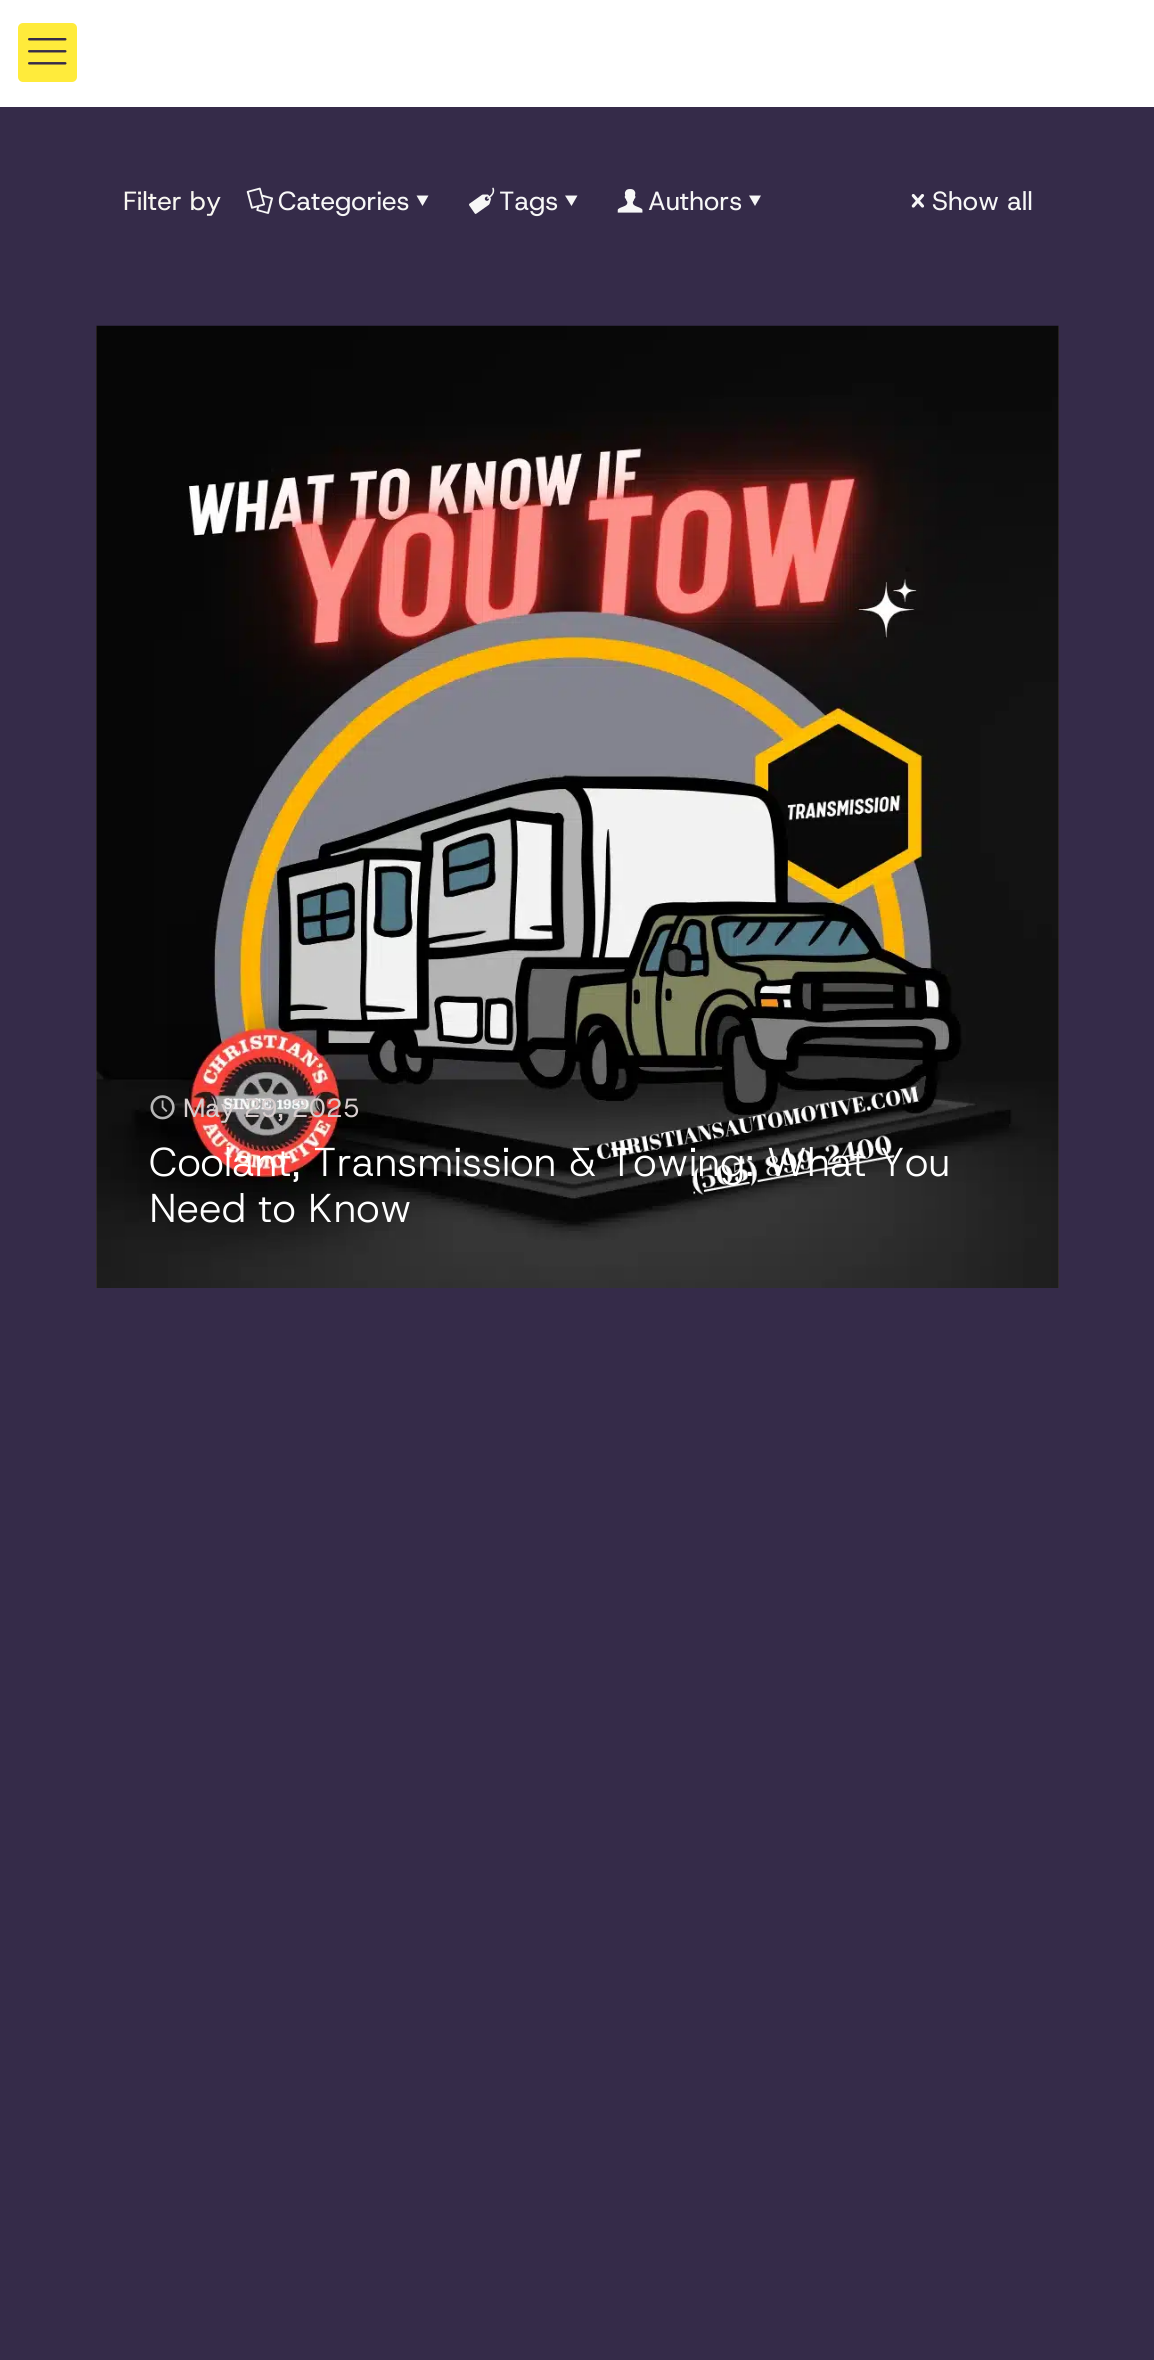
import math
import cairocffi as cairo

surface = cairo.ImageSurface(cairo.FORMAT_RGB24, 1154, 2360)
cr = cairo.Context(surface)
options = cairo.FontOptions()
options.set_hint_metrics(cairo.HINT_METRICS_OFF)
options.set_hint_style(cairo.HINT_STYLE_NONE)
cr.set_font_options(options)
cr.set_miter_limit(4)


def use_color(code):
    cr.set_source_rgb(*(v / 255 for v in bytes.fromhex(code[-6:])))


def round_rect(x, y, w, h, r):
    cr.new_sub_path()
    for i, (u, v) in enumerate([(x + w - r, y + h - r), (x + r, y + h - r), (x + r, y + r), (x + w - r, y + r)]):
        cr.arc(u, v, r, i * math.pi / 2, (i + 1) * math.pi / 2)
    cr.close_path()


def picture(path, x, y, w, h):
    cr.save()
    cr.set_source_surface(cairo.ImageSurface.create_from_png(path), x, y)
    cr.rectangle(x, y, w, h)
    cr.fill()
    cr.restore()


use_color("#352b49")
cr.paint()
use_color("#ffffff")
cr.rectangle(0, 0, 1154, 107)
cr.fill()
use_color("#ffeb3b")
round_rect(18, 23, 59, 59, 5)
cr.fill()
picture("img1.png", 28, 38, 39, 27)
cr.select_font_face("Host Grotesk")
cr.set_font_size(26.25)
use_color("#f8f7f1")
cr.move_to(123, 210)
cr.show_text("Filter by")
picture("img2.png", 246, 187, 27, 27)
use_color("#f7f7f7")
cr.move_to(278, 210)
cr.show_text("Categories")
cr.new_path()
cr.move_to(428.5, 195.5)
cr.line_to(422.5, 206)
cr.line_to(416.5, 195.5)
cr.close_path()
cr.fill()
picture("img3.png", 469, 187, 26, 27)
cr.move_to(499, 210)
cr.show_text("Tags")
cr.new_path()
cr.move_to(577.5, 195.5)
cr.line_to(571.5, 206)
cr.line_to(565, 195.5)
cr.close_path()
cr.fill()
picture("img4.png", 617, 189, 26, 24)
cr.move_to(648, 210)
cr.show_text("Authors")
cr.new_path()
cr.move_to(761, 195.5)
cr.line_to(755, 206)
cr.line_to(749, 195.5)
cr.close_path()
cr.fill()
picture("img5.png", 911, 194, 14, 14)
cr.move_to(932, 210)
cr.show_text("Show all")
use_color("#4e413b")
cr.rectangle(96, 326, 963, 962)
cr.fill()
picture("img6.png", 96, 325, 963, 963)
picture("img7.png", 150, 1095, 25, 25)
use_color("#d8cece")
cr.move_to(183, 1117)
cr.show_text("May 29, 2025")
cr.select_font_face("Host Grotesk Light")
cr.set_font_size(40.25)
use_color("#ffffff")
cr.move_to(149, 1176)
cr.show_text("Coolant, Transmission & Towing: What You")
cr.move_to(149, 1222)
cr.show_text("Need to Know")
surface.write_to_png("result.png")
